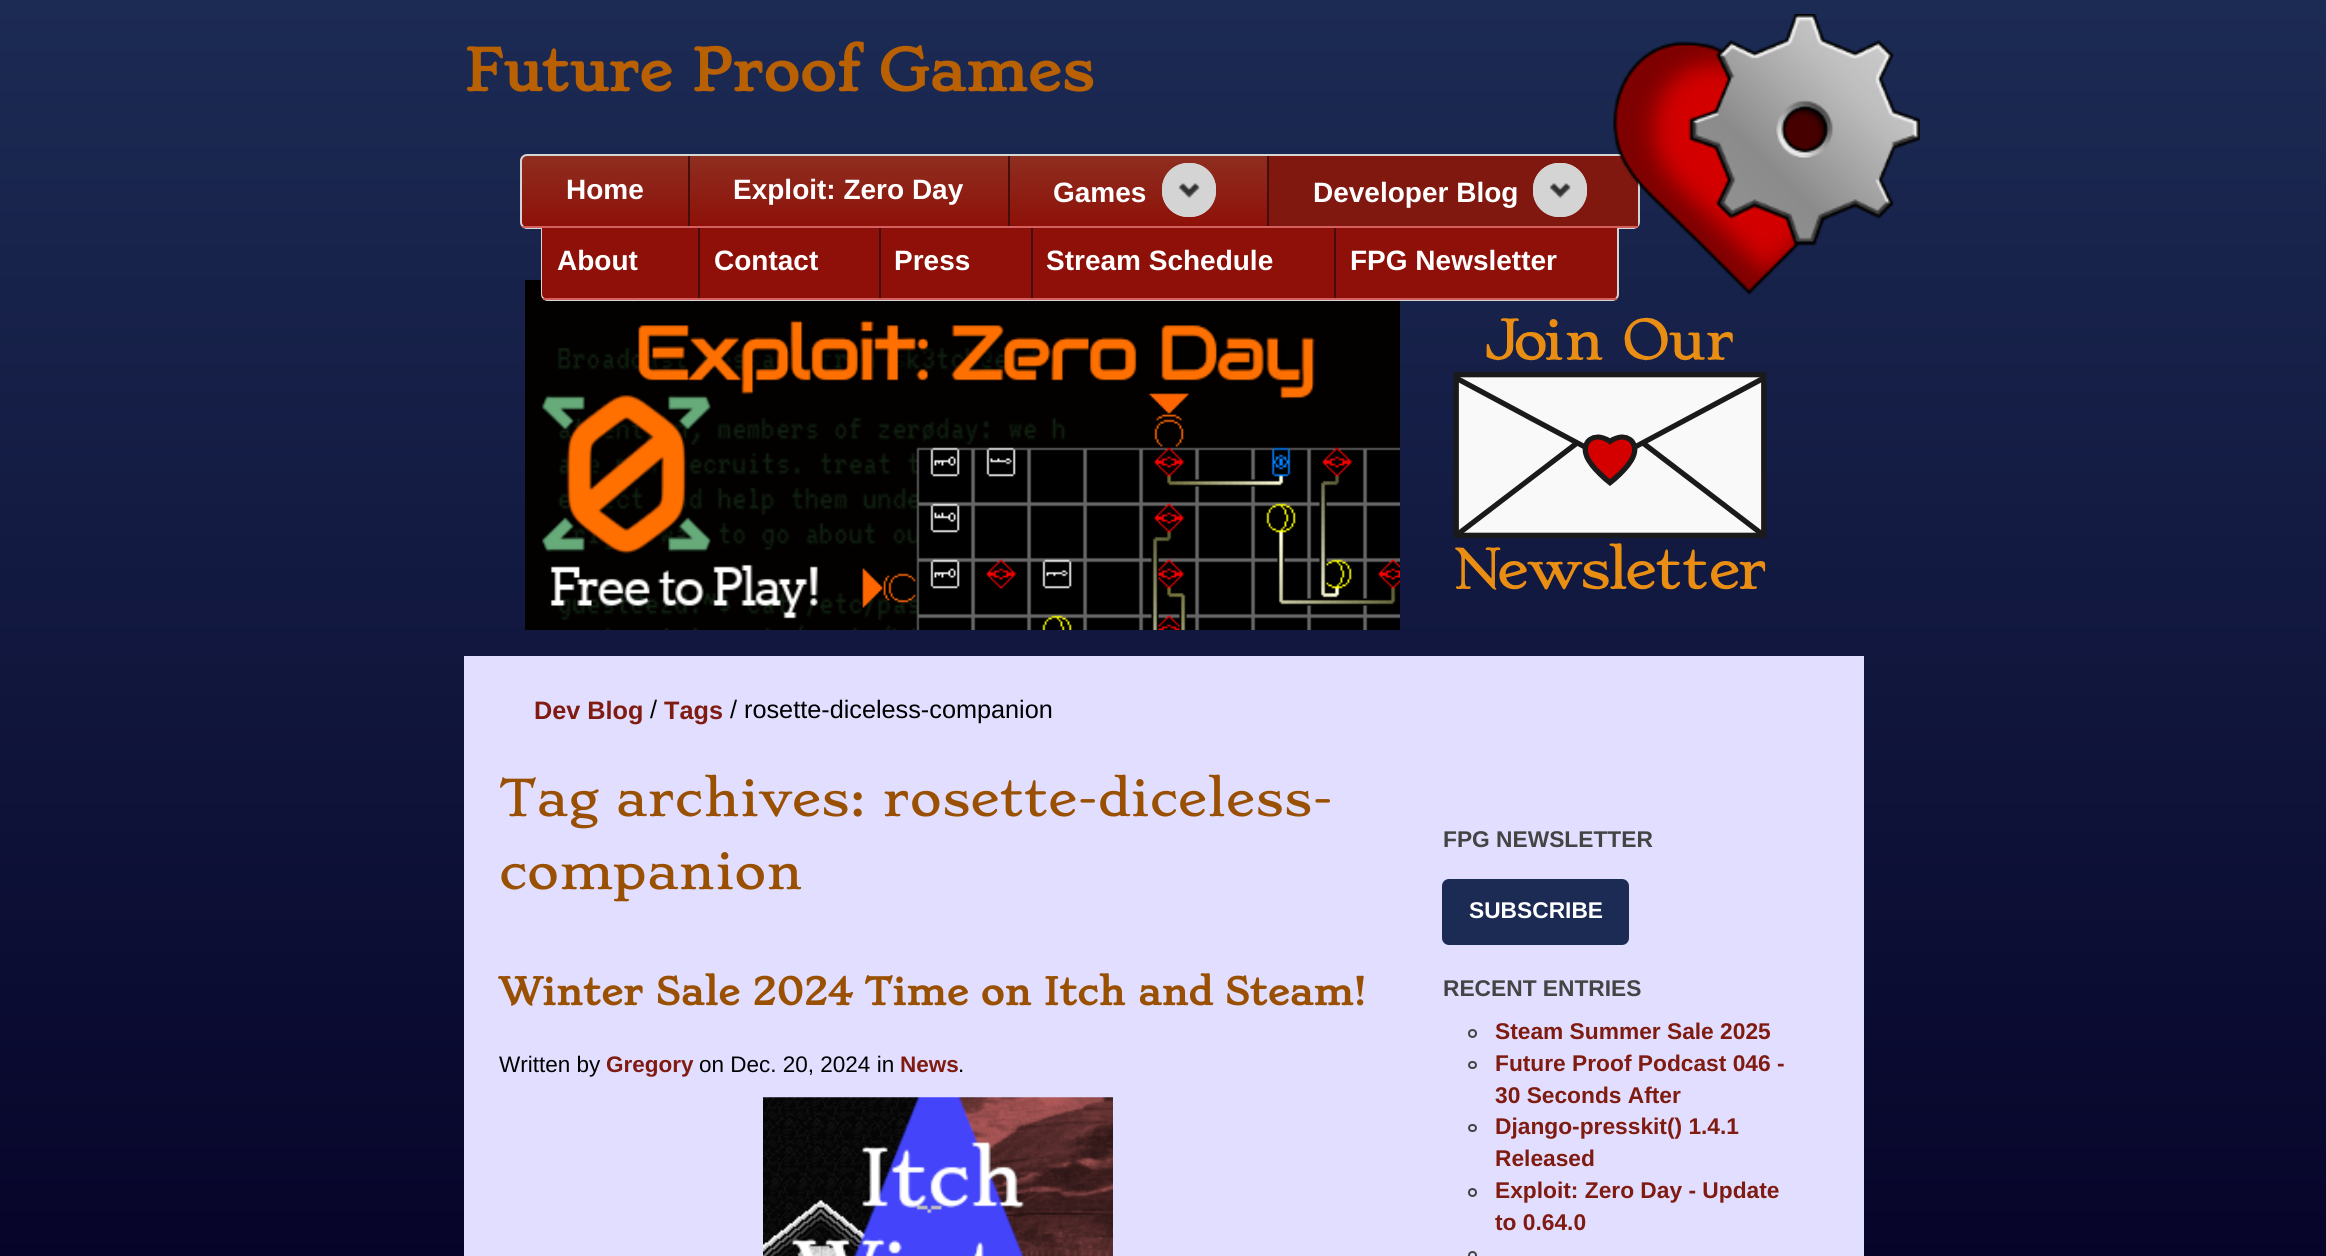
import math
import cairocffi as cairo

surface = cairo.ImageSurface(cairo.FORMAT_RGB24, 2326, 1256)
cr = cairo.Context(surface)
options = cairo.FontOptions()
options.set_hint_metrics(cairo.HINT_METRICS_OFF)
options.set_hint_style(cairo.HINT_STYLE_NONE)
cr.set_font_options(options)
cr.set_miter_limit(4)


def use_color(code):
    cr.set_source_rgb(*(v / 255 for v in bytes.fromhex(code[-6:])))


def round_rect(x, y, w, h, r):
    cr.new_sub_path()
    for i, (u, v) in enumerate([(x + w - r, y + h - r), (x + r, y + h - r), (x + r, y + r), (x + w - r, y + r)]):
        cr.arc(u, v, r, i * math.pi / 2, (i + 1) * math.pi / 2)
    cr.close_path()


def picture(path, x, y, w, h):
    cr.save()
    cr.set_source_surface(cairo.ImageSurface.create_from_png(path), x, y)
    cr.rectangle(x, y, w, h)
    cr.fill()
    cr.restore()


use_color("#ffffff")
cr.paint()
gradient = cairo.LinearGradient(1164, 0, 1164, 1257)
gradient.add_color_stop_rgba(0, 0.11, 0.169, 0.329, 1)
gradient.add_color_stop_rgba(1, 0.027, 0.016, 0.161, 1)
cr.set_source(gradient)
cr.rectangle(0, 0, 2326, 1256)
cr.fill()
cr.select_font_face("Stoke", cairo.FONT_SLANT_NORMAL, cairo.FONT_WEIGHT_BOLD)
cr.set_font_size(56)
use_color("#b96002")
cr.move_to(464, 91)
cr.show_text("Future Proof Games")
cr.save()
round_rect(520, 154, 1120, 75, 7)
cr.clip()
gradient = cairo.LinearGradient(1080, 156, 1080, 228)
gradient.add_color_stop_rgba(0, 0.557, 0.18, 0.125, 1)
gradient.add_color_stop_rgba(1, 0.557, 0.063, 0.031, 1)
cr.set_source(gradient)
cr.rectangle(520, 156, 1120, 71)
cr.fill()
cr.restore()
round_rect(521, 155, 1118, 73, 6)
use_color("#d4d4d4")
cr.stroke()
use_color("#450e0a")
cr.rectangle(1267, 156, 2, 72)
cr.fill()
use_color("#d45f5f")
cr.rectangle(1010, 226, 628, 2)
cr.fill()
use_color("#801810")
cr.rectangle(1269, 156, 369, 70)
cr.fill()
picture("img4.png", 525, 280, 875, 350)
use_color("#8e1008")
cr.new_path()
cr.move_to(541, 228)
cr.line_to(1619, 228)
cr.line_to(1619, 294)
cr.curve_to(1619, 298, 1616, 301, 1612, 301)
cr.line_to(548, 301)
cr.curve_to(544, 301, 541, 298, 541, 294)
cr.close_path()
cr.fill()
use_color("#d4d4d4")
cr.set_fill_rule(cairo.FILL_RULE_EVEN_ODD)
cr.new_path()
cr.move_to(541, 228)
cr.line_to(1619, 228)
cr.line_to(1619, 294)
cr.curve_to(1619, 298, 1616, 301, 1612, 301)
cr.line_to(548, 301)
cr.curve_to(544, 301, 541, 298, 541, 294)
cr.close_path()
cr.move_to(542, 228)
cr.line_to(1617, 228)
cr.line_to(1617, 294)
cr.curve_to(1617, 297, 1615, 299, 1612, 299)
cr.line_to(548, 299)
cr.curve_to(545, 299, 542, 297, 542, 294)
cr.close_path()
cr.fill()
picture("img1.png", 1613, 14, 307, 281)
use_color("#450e0a")
cr.rectangle(688, 156, 2, 72)
cr.fill()
use_color("#d45f5f")
cr.rectangle(522, 226, 168, 2)
cr.fill()
cr.select_font_face("Liberation Sans", cairo.FONT_SLANT_NORMAL, cairo.FONT_WEIGHT_BOLD)
cr.set_font_size(28)
use_color("#ffffff")
cr.move_to(566, 199)
cr.show_text("Home")
use_color("#450e0a")
cr.rectangle(1008, 156, 2, 72)
cr.fill()
use_color("#d45f5f")
cr.rectangle(690, 226, 320, 2)
cr.fill()
use_color("#ffffff")
cr.move_to(733, 199)
cr.show_text("Exploit: Zero Day")
cr.move_to(1053, 202)
cr.show_text("Games")
use_color("#d4d4d4")
round_rect(1162, 163, 54, 54, 26)
cr.fill()
picture("img2.png", 1178, 183, 22, 16)
round_rect(1164, 165, 50, 50, 24)
cr.set_line_width(4)
cr.stroke()
use_color("#ffffff")
cr.move_to(1313, 202)
cr.show_text("Developer Blog")
use_color("#d4d4d4")
round_rect(1533, 163, 54, 54, 26)
cr.fill()
picture("img3.png", 1549, 183, 22, 16)
round_rect(1535, 165, 50, 50, 24)
cr.stroke()
use_color("#450e0a")
cr.rectangle(698, 228, 2, 71)
cr.fill()
use_color("#d45f5f")
cr.rectangle(543, 298, 157, 2)
cr.fill()
use_color("#ffffff")
cr.move_to(557, 270)
cr.show_text("About")
use_color("#450e0a")
cr.rectangle(879, 228, 2, 71)
cr.fill()
use_color("#d45f5f")
cr.rectangle(700, 298, 180, 2)
cr.fill()
use_color("#ffffff")
cr.move_to(714, 270)
cr.show_text("Contact")
use_color("#450e0a")
cr.rectangle(1031, 228, 2, 71)
cr.fill()
use_color("#d45f5f")
cr.rectangle(880, 298, 153, 2)
cr.fill()
use_color("#ffffff")
cr.move_to(894, 270)
cr.show_text("Press")
use_color("#450e0a")
cr.rectangle(1334, 228, 2, 71)
cr.fill()
use_color("#d45f5f")
cr.rectangle(1033, 298, 584, 2)
cr.fill()
use_color("#ffffff")
cr.move_to(1046, 270)
cr.show_text("Stream Schedule")
cr.move_to(1350, 270)
cr.show_text("FPG Newsletter")
picture("img5.png", 1453, 317, 314, 273)
use_color("#e1deff")
cr.rectangle(464, 656, 1400, 600)
cr.fill()
cr.set_font_size(25.25)
use_color("#7f1b11")
cr.move_to(534, 719)
cr.show_text("Dev Blog")
cr.select_font_face("Liberation Sans")
use_color("#000000")
cr.move_to(650, 718)
cr.show_text("/")
cr.select_font_face("Liberation Sans", cairo.FONT_SLANT_NORMAL, cairo.FONT_WEIGHT_BOLD)
use_color("#7f1b11")
cr.move_to(664, 719)
cr.show_text("Tags")
cr.select_font_face("Liberation Sans")
use_color("#000000")
cr.move_to(730, 718)
cr.show_text("/ rosette-diceless-companion")
cr.select_font_face("Stoke")
cr.set_font_size(49)
use_color("#9a5002")
cr.move_to(499, 816)
cr.show_text("Tag archives: rosette-diceless-")
cr.move_to(499, 889)
cr.show_text("companion")
cr.select_font_face("Stoke", cairo.FONT_SLANT_NORMAL, cairo.FONT_WEIGHT_BOLD)
cr.set_font_size(36.4)
cr.move_to(499, 1005)
cr.show_text("Winter Sale 2024 Time on Itch and Steam!")
cr.select_font_face("Liberation Sans")
cr.set_font_size(22.5)
use_color("#000000")
cr.move_to(499, 1072)
cr.show_text("Written by")
cr.select_font_face("Liberation Sans", cairo.FONT_SLANT_NORMAL, cairo.FONT_WEIGHT_BOLD)
use_color("#7f1b11")
cr.move_to(606, 1072)
cr.show_text("Gregory")
cr.select_font_face("Liberation Sans")
use_color("#000000")
cr.move_to(699, 1072)
cr.show_text("on Dec. 20, 2024 in")
cr.select_font_face("Liberation Sans", cairo.FONT_SLANT_NORMAL, cairo.FONT_WEIGHT_BOLD)
use_color("#7f1b11")
cr.move_to(900, 1072)
cr.show_text("News")
cr.select_font_face("Liberation Sans")
use_color("#000000")
cr.move_to(958, 1072)
cr.show_text(".")
picture("img6.png", 763, 1097, 350, 159)
cr.select_font_face("Liberation Sans", cairo.FONT_SLANT_NORMAL, cairo.FONT_WEIGHT_BOLD)
cr.set_font_size(22.75)
use_color("#444444")
cr.move_to(1443, 847)
cr.show_text("FPG NEWSLETTER")
use_color("#1c2b54")
round_rect(1442, 879, 187, 66, 7)
cr.fill()
use_color("#ffffff")
cr.move_to(1469, 918)
cr.show_text("SUBSCRIBE")
use_color("#444444")
cr.move_to(1443, 996)
cr.show_text("RECENT ENTRIES")
cr.new_path()
cr.arc(1472.5, 1033.5, 3.5, 0, 2 * math.pi)
cr.set_line_width(2)
cr.stroke()
use_color("#7f1b11")
cr.move_to(1495, 1039)
cr.show_text("Steam Summer Sale 2025")
round_rect(1469, 1062, 7, 6, 3)
use_color("#444444")
cr.stroke()
use_color("#7f1b11")
cr.move_to(1495, 1071)
cr.show_text("Future Proof Podcast 046 -")
cr.move_to(1495, 1103)
cr.show_text("30 Seconds After")
round_rect(1469, 1125, 7, 6, 3)
use_color("#444444")
cr.stroke()
use_color("#7f1b11")
cr.move_to(1495, 1134)
cr.show_text("Django-presskit() 1.4.1")
cr.move_to(1495, 1166)
cr.show_text("Released")
cr.new_path()
cr.arc(1472.5, 1192.5, 3.5, 0, 2 * math.pi)
use_color("#444444")
cr.stroke()
use_color("#7f1b11")
cr.move_to(1495, 1198)
cr.show_text("Exploit: Zero Day - Update")
cr.move_to(1495, 1230)
cr.show_text("to 0.64.0")
cr.new_path()
cr.arc(1472.5, 1255.5, 3.5, 0, 2 * math.pi)
use_color("#444444")
cr.stroke()
surface.write_to_png("result.png")
